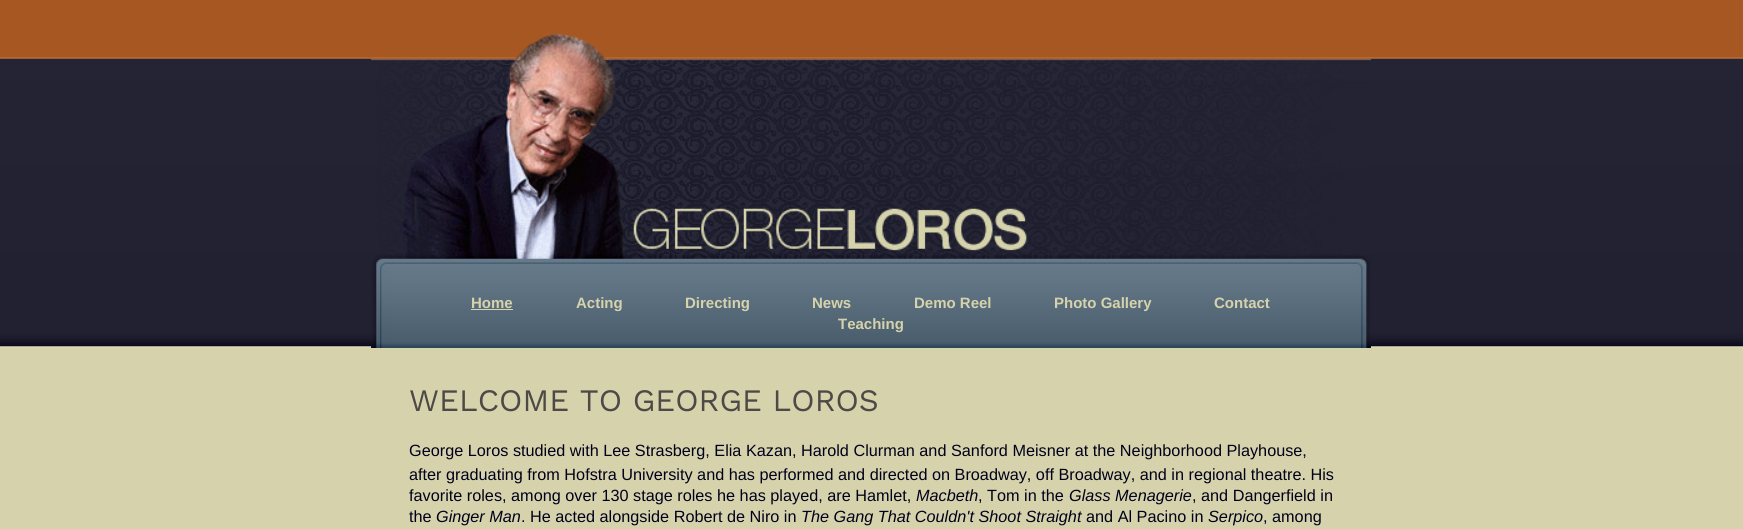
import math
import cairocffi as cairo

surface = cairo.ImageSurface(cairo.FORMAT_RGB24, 1743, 529)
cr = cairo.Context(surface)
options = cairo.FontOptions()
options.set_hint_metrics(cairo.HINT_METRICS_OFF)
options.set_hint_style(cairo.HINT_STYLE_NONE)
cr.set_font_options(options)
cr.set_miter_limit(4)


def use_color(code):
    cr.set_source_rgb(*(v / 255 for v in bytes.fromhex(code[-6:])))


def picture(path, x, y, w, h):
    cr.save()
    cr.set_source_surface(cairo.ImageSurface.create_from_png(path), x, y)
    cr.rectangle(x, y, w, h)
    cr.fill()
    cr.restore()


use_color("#d6d3ac")
cr.paint()
picture("img1.png", 0, 0, 1743, 348)
picture("img2.png", 371, 33, 1000, 315)
cr.select_font_face("Liberation Sans", cairo.FONT_SLANT_NORMAL, cairo.FONT_WEIGHT_BOLD)
cr.set_font_size(15)
use_color("#d6d3ac")
cr.move_to(471, 308)
cr.show_text("Home")
cr.rectangle(471, 309, 42, 1)
cr.fill()
cr.move_to(576, 308)
cr.show_text("Acting")
cr.move_to(685, 308)
cr.show_text("Directing")
cr.move_to(812, 308)
cr.show_text("News")
cr.move_to(914, 308)
cr.show_text("Demo Reel")
cr.move_to(1054, 308)
cr.show_text("Photo Gallery")
cr.move_to(1214, 308)
cr.show_text("Contact")
cr.move_to(838, 329)
cr.show_text("Teaching")
cr.select_font_face("Work Sans")
cr.set_font_size(31.25)
use_color("#4d4946")
cr.move_to(409, 411)
cr.show_text("WELCOME TO GEORGE LOROS")
cr.select_font_face("Liberation Sans")
cr.set_font_size(16.25)
use_color("#000019")
cr.move_to(409, 456)
cr.show_text("George Loros studied with Lee Strasberg, Elia Kazan, Harold Clurman and Sanford Meisner at the Neighborhood Playhouse,")
cr.move_to(409, 480)
cr.show_text("after graduating from Hofstra University and has performed and directed on Broadway, off Broadway, and in regional theatre. His")
cr.move_to(409, 501)
cr.show_text("favorite roles, among over 130 stage roles he has played, are Hamlet,")
cr.select_font_face("Liberation Sans", cairo.FONT_SLANT_ITALIC)
cr.move_to(916, 501)
cr.show_text("Macbeth")
cr.select_font_face("Liberation Sans")
cr.move_to(978, 501)
cr.show_text(", Tom in the")
cr.select_font_face("Liberation Sans", cairo.FONT_SLANT_ITALIC)
cr.move_to(1069, 501)
cr.show_text("Glass Menagerie")
cr.select_font_face("Liberation Sans")
cr.move_to(1192, 501)
cr.show_text(", and Dangerfield in")
cr.move_to(409, 522)
cr.show_text("the")
cr.select_font_face("Liberation Sans", cairo.FONT_SLANT_ITALIC)
cr.move_to(436, 522)
cr.show_text("Ginger Man")
cr.select_font_face("Liberation Sans")
cr.move_to(521, 522)
cr.show_text(". He acted alongside Robert de Niro in")
cr.select_font_face("Liberation Sans", cairo.FONT_SLANT_ITALIC)
cr.move_to(801, 522)
cr.show_text("The Gang That Couldn't Shoot Straight")
cr.select_font_face("Liberation Sans")
cr.move_to(1086, 522)
cr.show_text("and Al Pacino in")
cr.select_font_face("Liberation Sans", cairo.FONT_SLANT_ITALIC)
cr.move_to(1208, 522)
cr.show_text("Serpico")
cr.select_font_face("Liberation Sans")
cr.move_to(1263, 522)
cr.show_text(", among")
surface.write_to_png("result.png")
